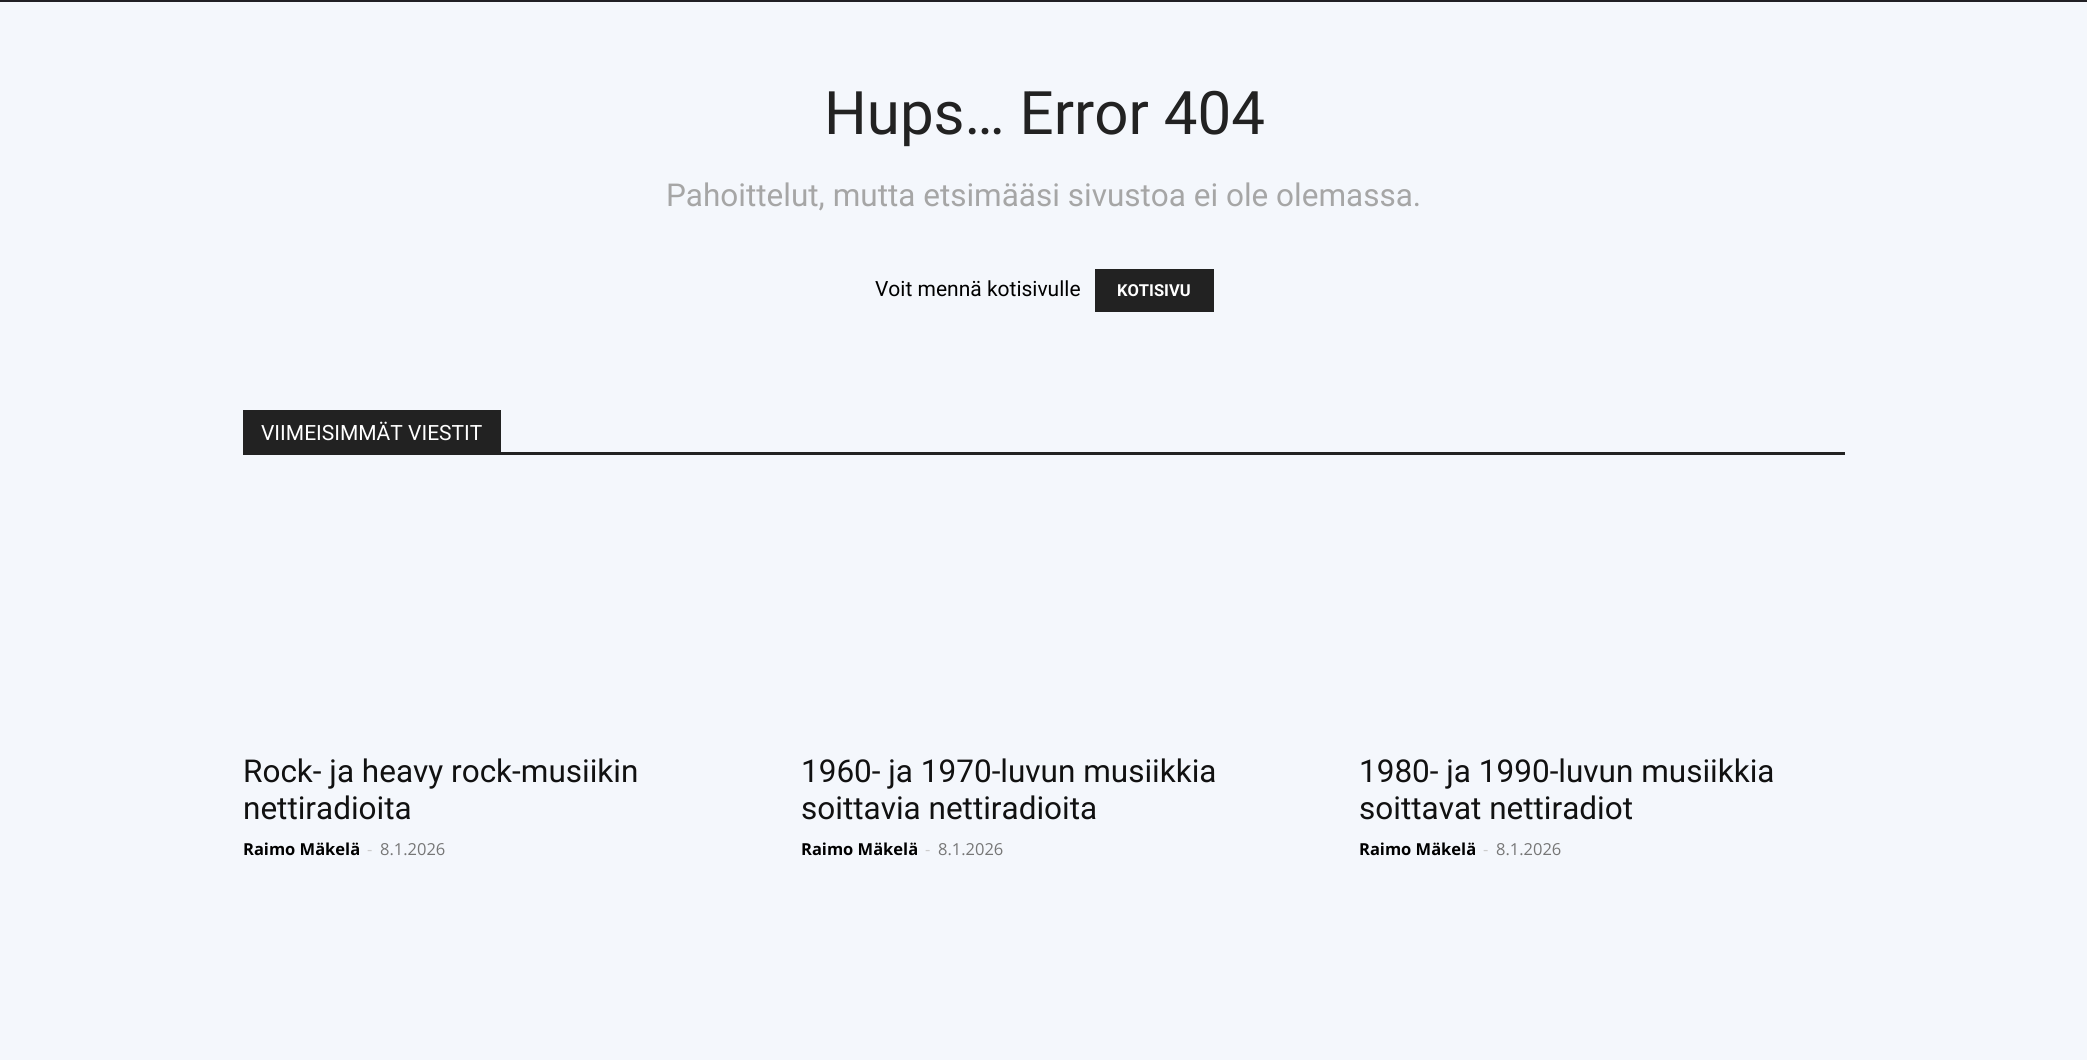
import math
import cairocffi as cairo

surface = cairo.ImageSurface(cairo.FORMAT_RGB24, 2087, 1060)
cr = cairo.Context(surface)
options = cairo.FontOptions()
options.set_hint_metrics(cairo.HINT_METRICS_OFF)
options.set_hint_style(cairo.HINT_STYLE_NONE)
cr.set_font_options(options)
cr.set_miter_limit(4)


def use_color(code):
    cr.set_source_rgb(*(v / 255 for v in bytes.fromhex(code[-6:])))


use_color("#f4f7fc")
cr.paint()
use_color("#212025")
cr.rectangle(0, 0, 2087, 2)
cr.fill()
cr.select_font_face("Roboto")
cr.set_font_size(60)
use_color("#222222")
cr.move_to(824, 134)
cr.show_text("Hups… Error 404")
cr.set_font_size(31.5)
use_color("#a6a6a6")
cr.move_to(666, 206)
cr.show_text("Pahoittelut, mutta etsimääsi sivustoa ei ole olemassa.")
cr.set_font_size(21)
use_color("#000000")
cr.move_to(875, 296)
cr.show_text("Voit mennä kotisivulle")
use_color("#222222")
cr.rectangle(1095, 269, 119, 43)
cr.fill()
cr.select_font_face("Roboto", cairo.FONT_SLANT_NORMAL, cairo.FONT_WEIGHT_BOLD)
cr.set_font_size(16.5)
use_color("#ffffff")
cr.move_to(1117, 296)
cr.show_text("KOTISIVU")
use_color("#222222")
cr.rectangle(243, 452, 1602, 3)
cr.fill()
cr.rectangle(243, 410, 258, 42)
cr.fill()
cr.select_font_face("Roboto")
cr.set_font_size(21)
use_color("#ffffff")
cr.move_to(261, 440)
cr.show_text("VIIMEISIMMÄT VIESTIT")
cr.set_font_size(31.5)
use_color("#111111")
cr.move_to(243, 782)
cr.show_text("Rock- ja heavy rock-musiikin")
cr.move_to(243, 819)
cr.show_text("nettiradioita")
cr.select_font_face("Open Sans", cairo.FONT_SLANT_NORMAL, cairo.FONT_WEIGHT_BOLD)
cr.set_font_size(16.5)
use_color("#000000")
cr.move_to(243, 855)
cr.show_text("Raimo Mäkelä")
cr.select_font_face("Open Sans")
use_color("#cccccc")
cr.move_to(367, 855)
cr.show_text("-")
use_color("#767676")
cr.move_to(380, 855)
cr.show_text("8.1.2026")
cr.select_font_face("Roboto")
cr.set_font_size(31.5)
use_color("#111111")
cr.move_to(801, 782)
cr.show_text("1960- ja 1970-luvun musiikkia")
cr.move_to(801, 819)
cr.show_text("soittavia nettiradioita")
cr.select_font_face("Open Sans", cairo.FONT_SLANT_NORMAL, cairo.FONT_WEIGHT_BOLD)
cr.set_font_size(16.5)
use_color("#000000")
cr.move_to(801, 855)
cr.show_text("Raimo Mäkelä")
cr.select_font_face("Open Sans")
use_color("#cccccc")
cr.move_to(925, 855)
cr.show_text("-")
use_color("#767676")
cr.move_to(938, 855)
cr.show_text("8.1.2026")
cr.select_font_face("Roboto")
cr.set_font_size(31.5)
use_color("#111111")
cr.move_to(1359, 782)
cr.show_text("1980- ja 1990-luvun musiikkia")
cr.move_to(1359, 819)
cr.show_text("soittavat nettiradiot")
cr.select_font_face("Open Sans", cairo.FONT_SLANT_NORMAL, cairo.FONT_WEIGHT_BOLD)
cr.set_font_size(16.5)
use_color("#000000")
cr.move_to(1359, 855)
cr.show_text("Raimo Mäkelä")
cr.select_font_face("Open Sans")
use_color("#cccccc")
cr.move_to(1483, 855)
cr.show_text("-")
use_color("#767676")
cr.move_to(1496, 855)
cr.show_text("8.1.2026")
surface.write_to_png("result.png")
